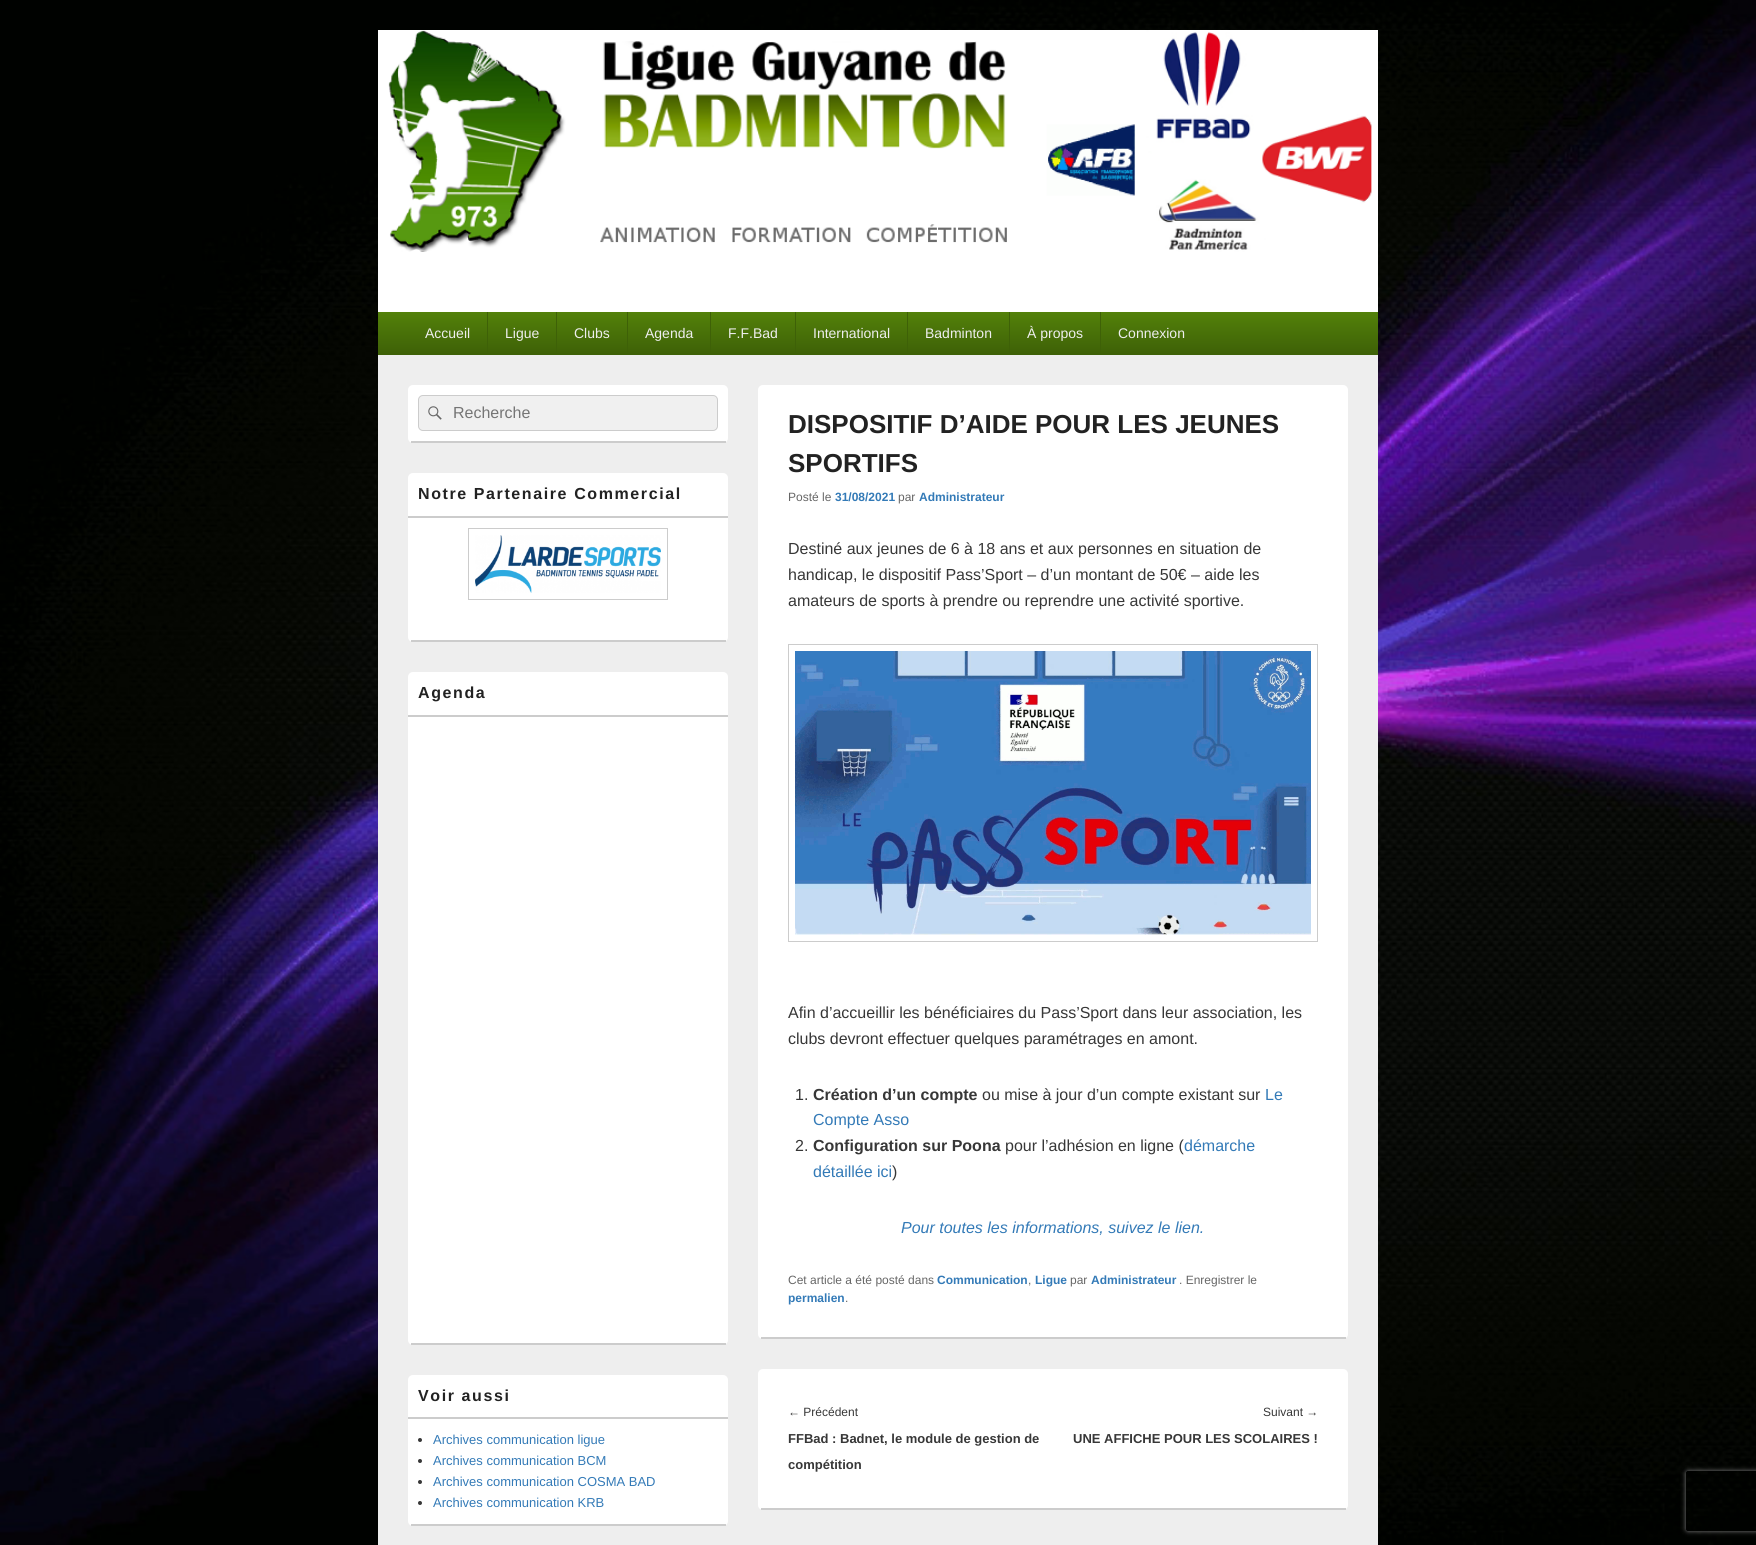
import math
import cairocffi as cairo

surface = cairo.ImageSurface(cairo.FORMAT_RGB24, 1756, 1545)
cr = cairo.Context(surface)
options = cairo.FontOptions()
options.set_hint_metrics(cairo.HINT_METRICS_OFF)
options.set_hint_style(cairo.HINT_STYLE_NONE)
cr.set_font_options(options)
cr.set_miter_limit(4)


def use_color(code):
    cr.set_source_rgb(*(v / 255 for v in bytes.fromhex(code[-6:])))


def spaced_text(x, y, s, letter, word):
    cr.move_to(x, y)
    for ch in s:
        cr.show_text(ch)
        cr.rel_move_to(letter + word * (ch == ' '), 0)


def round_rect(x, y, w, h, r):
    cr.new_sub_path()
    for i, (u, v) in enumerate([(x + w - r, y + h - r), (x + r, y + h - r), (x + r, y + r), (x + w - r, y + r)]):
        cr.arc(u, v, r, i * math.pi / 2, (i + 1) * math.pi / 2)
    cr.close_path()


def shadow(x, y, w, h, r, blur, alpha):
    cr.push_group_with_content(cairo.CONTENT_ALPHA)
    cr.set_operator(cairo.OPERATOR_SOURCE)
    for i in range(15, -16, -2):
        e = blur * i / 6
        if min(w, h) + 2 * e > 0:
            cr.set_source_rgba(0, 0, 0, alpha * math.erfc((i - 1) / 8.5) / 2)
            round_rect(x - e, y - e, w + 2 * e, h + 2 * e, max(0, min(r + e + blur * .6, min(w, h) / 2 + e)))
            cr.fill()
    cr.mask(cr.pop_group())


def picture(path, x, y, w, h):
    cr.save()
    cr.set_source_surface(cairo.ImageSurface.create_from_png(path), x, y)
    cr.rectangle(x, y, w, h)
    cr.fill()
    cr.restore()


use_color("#ffffff")
cr.paint()
picture("img1.png", 0, 0, 1756, 1545)
use_color("#eeeeee")
cr.rectangle(378, 355, 1000, 1190)
cr.fill()
use_color("#ffffff")
cr.rectangle(378, 252, 1000, 60)
cr.fill()
picture("img2.png", 378, 30, 1000, 222)
gradient = cairo.LinearGradient(878, 312, 878, 354)
gradient.add_color_stop_rgba(0, 0.325, 0.506, 0.039, 1)
gradient.add_color_stop_rgba(1, 0.243, 0.38, 0.027, 1)
cr.set_source(gradient)
cr.rectangle(378, 312, 1000, 42)
cr.fill()
use_color("#3e6107")
cr.rectangle(378, 354, 1000, 1)
cr.fill()
cr.select_font_face("Liberation Sans")
cr.set_font_size(14)
use_color("#eeeeee")
cr.move_to(425, 338)
cr.show_text("Accueil")
use_color("#3e6107")
cr.rectangle(487, 312, 1, 42)
cr.fill()
use_color("#eeeeee")
cr.move_to(505, 338)
cr.show_text("Ligue")
use_color("#3e6107")
cr.rectangle(556, 312, 1, 42)
cr.fill()
use_color("#eeeeee")
cr.move_to(574, 338)
cr.show_text("Clubs")
use_color("#3e6107")
cr.rectangle(627, 312, 1, 42)
cr.fill()
use_color("#eeeeee")
cr.move_to(645, 338)
cr.show_text("Agenda")
use_color("#3e6107")
cr.rectangle(710, 312, 1, 42)
cr.fill()
use_color("#eeeeee")
cr.move_to(728, 338)
cr.show_text("F.F.Bad")
use_color("#3e6107")
cr.rectangle(795, 312, 1, 42)
cr.fill()
use_color("#eeeeee")
cr.move_to(813, 338)
cr.show_text("International")
use_color("#3e6107")
cr.rectangle(907, 312, 1, 42)
cr.fill()
use_color("#eeeeee")
cr.move_to(925, 338)
cr.show_text("Badminton")
use_color("#3e6107")
cr.rectangle(1009, 312, 1, 42)
cr.fill()
use_color("#eeeeee")
cr.move_to(1027, 338)
cr.show_text("À propos")
use_color("#3e6107")
cr.rectangle(1100, 312, 1, 42)
cr.fill()
use_color("#eeeeee")
cr.move_to(1118, 338)
cr.show_text("Connexion")
use_color("#ffffff")
round_rect(408, 385, 320, 58, 5)
cr.fill()
use_color("#cccccc")
cr.rectangle(411, 441, 315, 2)
cr.fill()
use_color("#f0f0f0")
round_rect(418.5, 395.5, 299, 35, 4.5)
cr.fill_preserve()
use_color("#cccccc")
cr.set_line_width(1)
cr.stroke()
picture("img3.png", 428, 406, 14, 14)
cr.set_font_size(16)
use_color("#757575")
cr.move_to(453, 418)
cr.show_text("Recherche")
use_color("#ffffff")
round_rect(408, 473, 320, 169, 5)
cr.fill()
use_color("#cccccc")
cr.rectangle(411, 640, 315, 2)
cr.fill()
cr.rectangle(408, 516, 320, 2)
cr.fill()
cr.select_font_face("Liberation Sans", cairo.FONT_SLANT_NORMAL, cairo.FONT_WEIGHT_BOLD)
use_color("#222222")
spaced_text(418, 499, "Notre Partenaire Commercial", 1.6, 0)
cr.rectangle(468.5, 528.5, 199, 71)
use_color("#cccccc")
cr.stroke()
picture("img4.png", 475, 535, 186, 58)
use_color("#ffffff")
round_rect(408, 672, 320, 673, 5)
cr.fill()
use_color("#cccccc")
cr.rectangle(411, 1343, 315, 2)
cr.fill()
cr.rectangle(408, 715, 320, 2)
cr.fill()
use_color("#222222")
spaced_text(418, 698, "Agenda", 1.6, 0)
use_color("#ffffff")
round_rect(408, 1375, 320, 151, 5)
cr.fill()
use_color("#cccccc")
cr.rectangle(411, 1524, 315, 2)
cr.fill()
cr.rectangle(408, 1417, 320, 2)
cr.fill()
use_color("#222222")
spaced_text(418, 1401, "Voir aussi", 1.6, 0)
use_color("#373737")
cr.new_path()
cr.arc(420, 1440, 2, 0, 2 * math.pi)
cr.fill()
cr.select_font_face("Liberation Sans")
cr.set_font_size(13)
use_color("#337ab7")
cr.move_to(433, 1444)
cr.show_text("Archives communication ligue")
use_color("#373737")
cr.new_path()
cr.arc(420, 1461, 2, 0, 2 * math.pi)
cr.fill()
use_color("#337ab7")
cr.move_to(433, 1465)
cr.show_text("Archives communication BCM")
use_color("#373737")
cr.new_path()
cr.arc(420, 1482, 2, 0, 2 * math.pi)
cr.fill()
use_color("#337ab7")
cr.move_to(433, 1486)
cr.show_text("Archives communication COSMA BAD")
use_color("#373737")
cr.new_path()
cr.arc(420, 1503, 2, 0, 2 * math.pi)
cr.fill()
use_color("#337ab7")
cr.move_to(433, 1507)
cr.show_text("Archives communication KRB")
use_color("#ffffff")
round_rect(758, 385, 590, 954, 5)
cr.fill()
use_color("#cccccc")
cr.rectangle(761, 1337, 585, 2)
cr.fill()
cr.select_font_face("Liberation Sans", cairo.FONT_SLANT_NORMAL, cairo.FONT_WEIGHT_BOLD)
cr.set_font_size(26)
use_color("#222222")
cr.move_to(788, 433)
cr.show_text("DISPOSITIF D’AIDE POUR LES JEUNES")
cr.move_to(788, 472)
cr.show_text("SPORTIFS")
cr.select_font_face("Liberation Sans")
cr.set_font_size(12)
use_color("#666666")
cr.move_to(788, 501)
cr.show_text("Posté le")
cr.select_font_face("Liberation Sans", cairo.FONT_SLANT_NORMAL, cairo.FONT_WEIGHT_BOLD)
use_color("#337ab7")
cr.move_to(835, 501)
cr.show_text("31/08/2021")
cr.select_font_face("Liberation Sans")
use_color("#666666")
cr.move_to(898, 501)
cr.show_text("par")
cr.select_font_face("Liberation Sans", cairo.FONT_SLANT_NORMAL, cairo.FONT_WEIGHT_BOLD)
use_color("#337ab7")
cr.move_to(919, 501)
cr.show_text("Administrateur")
cr.select_font_face("Liberation Sans")
cr.set_font_size(16)
use_color("#373737")
cr.move_to(788, 554)
cr.show_text("Destiné aux jeunes de 6 à 18 ans et aux personnes en situation de")
cr.move_to(788, 580)
cr.show_text("handicap, le dispositif Pass’Sport – d’un montant de 50€ – aide les")
cr.move_to(788, 606)
cr.show_text("amateurs de sports à prendre ou reprendre une activité sportive.")
cr.rectangle(788.5, 644.5, 529, 297)
use_color("#cccccc")
cr.stroke()
picture("img5.png", 795, 651, 516, 284)
use_color("#373737")
cr.move_to(788, 1018)
cr.show_text("Afin d’accueillir les bénéficiaires du Pass’Sport dans leur association, les")
cr.move_to(788, 1044)
cr.show_text("clubs devront effectuer quelques paramétrages en amont.")
cr.move_to(795, 1100)
cr.show_text("1.")
cr.select_font_face("Liberation Sans", cairo.FONT_SLANT_NORMAL, cairo.FONT_WEIGHT_BOLD)
cr.move_to(813, 1100)
cr.show_text("Création d’un compte")
cr.select_font_face("Liberation Sans")
cr.move_to(982, 1100)
cr.show_text("ou mise à jour d’un compte existant sur")
use_color("#337ab7")
cr.move_to(1265, 1100)
cr.show_text("Le")
cr.move_to(813, 1125)
cr.show_text("Compte Asso")
use_color("#373737")
cr.move_to(795, 1151)
cr.show_text("2.")
cr.select_font_face("Liberation Sans", cairo.FONT_SLANT_NORMAL, cairo.FONT_WEIGHT_BOLD)
cr.move_to(813, 1151)
cr.show_text("Configuration sur Poona")
cr.select_font_face("Liberation Sans")
cr.move_to(1005, 1151)
cr.show_text("pour l’adhésion en ligne (")
use_color("#337ab7")
cr.move_to(1184, 1151)
cr.show_text("démarche")
cr.move_to(813, 1177)
cr.show_text("détaillée ici")
use_color("#373737")
cr.move_to(892, 1177)
cr.show_text(")")
cr.select_font_face("Liberation Sans", cairo.FONT_SLANT_ITALIC)
use_color("#337ab7")
cr.move_to(901, 1233)
cr.show_text("Pour toutes les informations, suivez le lien.")
cr.select_font_face("Liberation Sans")
cr.set_font_size(12)
use_color("#666666")
cr.move_to(788, 1284)
cr.show_text("Cet article a été posté dans")
cr.select_font_face("Liberation Sans", cairo.FONT_SLANT_NORMAL, cairo.FONT_WEIGHT_BOLD)
use_color("#337ab7")
cr.move_to(937, 1284)
cr.show_text("Communication")
cr.select_font_face("Liberation Sans")
use_color("#666666")
cr.move_to(1028, 1284)
cr.show_text(",")
cr.select_font_face("Liberation Sans", cairo.FONT_SLANT_NORMAL, cairo.FONT_WEIGHT_BOLD)
use_color("#337ab7")
cr.move_to(1035, 1284)
cr.show_text("Ligue")
cr.select_font_face("Liberation Sans")
use_color("#666666")
cr.move_to(1070, 1284)
cr.show_text("par")
cr.select_font_face("Liberation Sans", cairo.FONT_SLANT_NORMAL, cairo.FONT_WEIGHT_BOLD)
use_color("#337ab7")
cr.move_to(1091, 1284)
cr.show_text("Administrateur")
cr.select_font_face("Liberation Sans")
use_color("#666666")
cr.move_to(1179, 1284)
cr.show_text(". Enregistrer le")
cr.select_font_face("Liberation Sans", cairo.FONT_SLANT_NORMAL, cairo.FONT_WEIGHT_BOLD)
use_color("#337ab7")
cr.move_to(788, 1302)
cr.show_text("permalien")
cr.select_font_face("Liberation Sans")
use_color("#666666")
cr.move_to(845, 1302)
cr.show_text(".")
use_color("#ffffff")
round_rect(758, 1369, 590, 141, 5)
cr.fill()
use_color("#cccccc")
cr.rectangle(761, 1508, 585, 2)
cr.fill()
use_color("#373737")
cr.move_to(788, 1416)
cr.show_text("← Précédent")
cr.select_font_face("Liberation Sans", cairo.FONT_SLANT_NORMAL, cairo.FONT_WEIGHT_BOLD)
cr.set_font_size(13)
cr.move_to(788, 1443)
cr.show_text("FFBad : Badnet, le module de gestion de")
cr.move_to(788, 1469)
cr.show_text("compétition")
cr.select_font_face("Liberation Sans")
cr.set_font_size(12)
cr.move_to(1263, 1416)
cr.show_text("Suivant →")
cr.select_font_face("Liberation Sans", cairo.FONT_SLANT_NORMAL, cairo.FONT_WEIGHT_BOLD)
cr.set_font_size(13)
cr.move_to(1073, 1443)
cr.show_text("UNE AFFICHE POUR LES SCOLAIRES !")
cr.save()
cr.set_fill_rule(cairo.FILL_RULE_EVEN_ODD)
cr.new_path()
cr.move_to(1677, 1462)
cr.line_to(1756, 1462)
cr.line_to(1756, 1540)
cr.line_to(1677, 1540)
cr.close_path()
cr.move_to(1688, 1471)
cr.line_to(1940, 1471)
cr.curve_to(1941, 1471, 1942, 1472, 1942, 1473)
cr.line_to(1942, 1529)
cr.curve_to(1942, 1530, 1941, 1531, 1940, 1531)
cr.line_to(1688, 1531)
cr.curve_to(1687, 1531, 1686, 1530, 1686, 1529)
cr.line_to(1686, 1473)
cr.curve_to(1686, 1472, 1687, 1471, 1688, 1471)
cr.close_path()
cr.clip()
use_color("#808080")
shadow(1686, 1471, 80, 60, 2, 2.5, 1)
cr.restore()
surface.write_to_png("result.png")
